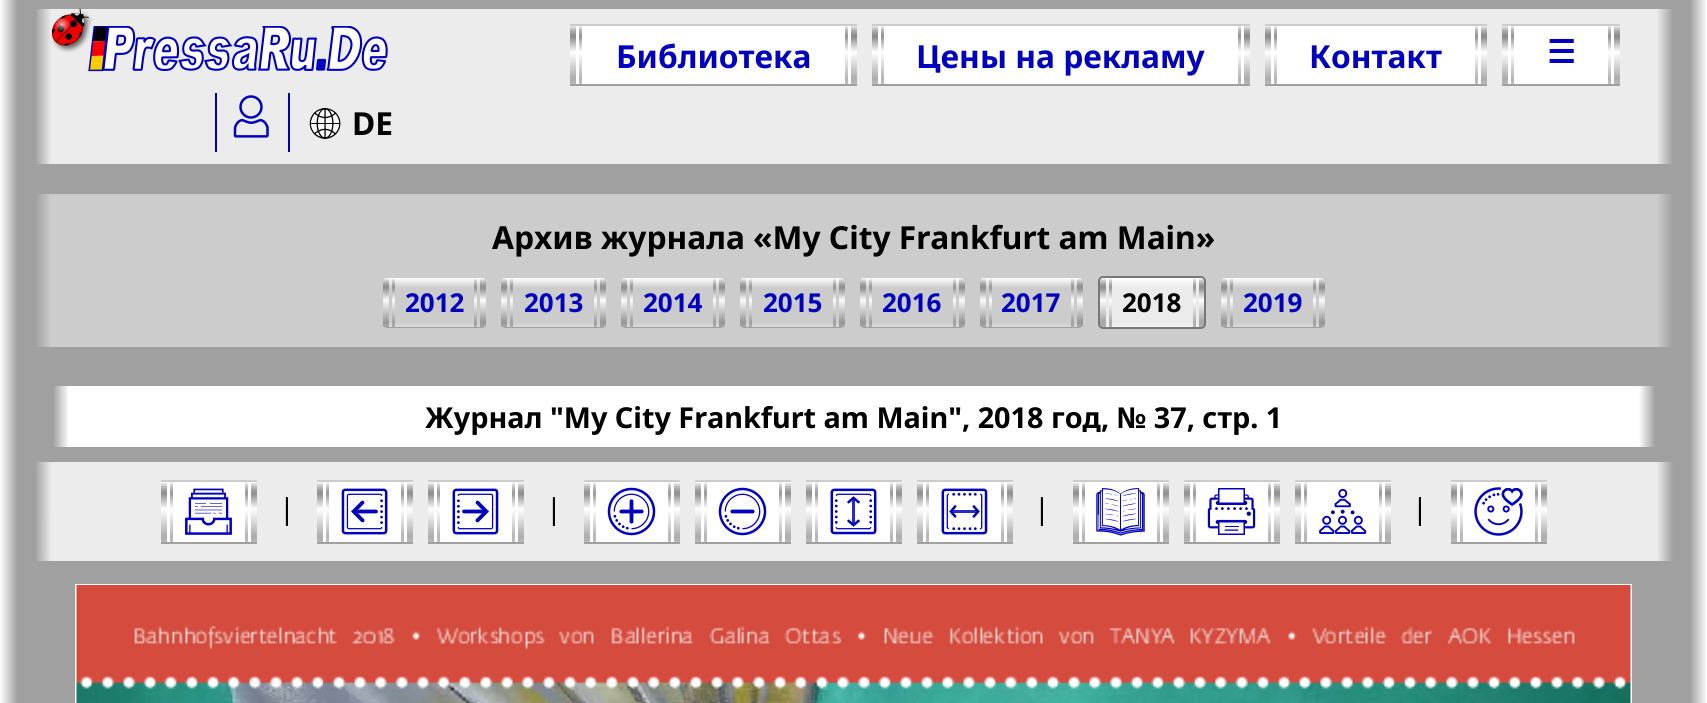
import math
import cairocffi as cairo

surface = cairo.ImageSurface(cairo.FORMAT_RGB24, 1707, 703)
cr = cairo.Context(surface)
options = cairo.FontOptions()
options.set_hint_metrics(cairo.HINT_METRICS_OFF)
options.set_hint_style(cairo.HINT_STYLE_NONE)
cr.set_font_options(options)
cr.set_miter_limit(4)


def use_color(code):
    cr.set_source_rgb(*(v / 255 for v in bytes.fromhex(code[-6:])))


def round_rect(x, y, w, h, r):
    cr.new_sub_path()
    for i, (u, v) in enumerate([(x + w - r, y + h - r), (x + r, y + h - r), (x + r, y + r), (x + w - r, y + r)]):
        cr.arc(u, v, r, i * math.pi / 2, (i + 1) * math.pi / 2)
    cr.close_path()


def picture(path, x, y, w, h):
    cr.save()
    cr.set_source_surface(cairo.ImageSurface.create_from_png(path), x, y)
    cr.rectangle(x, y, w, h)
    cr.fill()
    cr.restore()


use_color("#ffffff")
cr.paint()
gradient = cairo.LinearGradient(0, 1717, 1707, 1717)
gradient.add_color_stop_rgba(0, 1, 1, 1, 1)
gradient.add_color_stop_rgba(0.01, 0.627, 0.627, 0.627, 1)
gradient.add_color_stop_rgba(0.99, 0.627, 0.627, 0.627, 1)
gradient.add_color_stop_rgba(1, 1, 1, 1, 1)
cr.set_source(gradient)
cr.rectangle(0, 0, 1707, 703)
cr.fill()
gradient = cairo.LinearGradient(35, 86, 1673, 86)
gradient.add_color_stop_rgba(0, 0.627, 0.627, 0.627, 1)
gradient.add_color_stop_rgba(0.01, 0.925, 0.925, 0.925, 1)
gradient.add_color_stop_rgba(0.99, 0.925, 0.925, 0.925, 1)
gradient.add_color_stop_rgba(1, 0.627, 0.627, 0.627, 1)
cr.set_source(gradient)
cr.rectangle(36, 9, 1636, 155)
cr.fill()
picture("img2.png", 88, 26, 300, 46)
picture("img1.png", 51, 8, 42, 45)
use_color("#ffffff")
cr.rectangle(576, 26, 275, 58)
cr.fill()
gradient = cairo.LinearGradient(846, 26, 846, 84)
gradient.add_color_stop_rgba(0, 0.294, 0.294, 0.294, 1)
gradient.add_color_stop_rgba(0.45, 1, 1, 1, 1)
gradient.add_color_stop_rgba(1, 0.647, 0.647, 0.647, 1)
cr.set_source(gradient)
cr.rectangle(845, 26, 3, 58)
cr.fill()
gradient = cairo.LinearGradient(581, 26, 581, 84)
gradient.add_color_stop_rgba(0, 0.294, 0.294, 0.294, 1)
gradient.add_color_stop_rgba(0.45, 1, 1, 1, 1)
gradient.add_color_stop_rgba(1, 0.647, 0.647, 0.647, 1)
cr.set_source(gradient)
cr.rectangle(579, 26, 3, 58)
cr.fill()
gradient = cairo.LinearGradient(854, 26, 854, 84)
gradient.add_color_stop_rgba(0, 0.216, 0.216, 0.216, 1)
gradient.add_color_stop_rgba(0.45, 1, 1, 1, 1)
gradient.add_color_stop_rgba(1, 0.608, 0.608, 0.608, 1)
cr.set_source(gradient)
cr.rectangle(851, 26, 6, 58)
cr.fill()
gradient = cairo.LinearGradient(573, 26, 573, 84)
gradient.add_color_stop_rgba(0, 0.216, 0.216, 0.216, 1)
gradient.add_color_stop_rgba(0.45, 1, 1, 1, 1)
gradient.add_color_stop_rgba(1, 0.608, 0.608, 0.608, 1)
cr.set_source(gradient)
cr.rectangle(570, 26, 6, 58)
cr.fill()
gradient = cairo.LinearGradient(713, 25, 713, 84)
gradient.add_color_stop_rgba(0, 1, 1, 1, 1)
gradient.add_color_stop_rgba(0.2, 1, 1, 1, 0)
gradient.add_color_stop_rgba(0.9, 1, 1, 1, 0)
gradient.add_color_stop_rgba(1, 1, 1, 1, 0.3)
cr.set_source(gradient)
cr.rectangle(570, 26, 287, 58)
cr.fill()
use_color("#cccccc")
cr.rectangle(570, 24, 287, 2)
cr.fill()
use_color("#a0a0a0")
cr.rectangle(570, 84, 287, 2)
cr.fill()
cr.select_font_face("Noto Sans", cairo.FONT_SLANT_NORMAL, cairo.FONT_WEIGHT_BOLD)
cr.set_font_size(31.7)
use_color("#0000be")
cr.move_to(616, 68)
cr.show_text("Библиотека")
use_color("#ffffff")
cr.rectangle(878, 26, 366, 58)
cr.fill()
gradient = cairo.LinearGradient(1239, 26, 1239, 84)
gradient.add_color_stop_rgba(0, 0.294, 0.294, 0.294, 1)
gradient.add_color_stop_rgba(0.45, 1, 1, 1, 1)
gradient.add_color_stop_rgba(1, 0.647, 0.647, 0.647, 1)
cr.set_source(gradient)
cr.rectangle(1238, 26, 3, 58)
cr.fill()
gradient = cairo.LinearGradient(882, 26, 882, 84)
gradient.add_color_stop_rgba(0, 0.294, 0.294, 0.294, 1)
gradient.add_color_stop_rgba(0.45, 1, 1, 1, 1)
gradient.add_color_stop_rgba(1, 0.647, 0.647, 0.647, 1)
cr.set_source(gradient)
cr.rectangle(881, 26, 3, 58)
cr.fill()
gradient = cairo.LinearGradient(1247, 26, 1247, 84)
gradient.add_color_stop_rgba(0, 0.216, 0.216, 0.216, 1)
gradient.add_color_stop_rgba(0.45, 1, 1, 1, 1)
gradient.add_color_stop_rgba(1, 0.608, 0.608, 0.608, 1)
cr.set_source(gradient)
cr.rectangle(1244, 26, 6, 58)
cr.fill()
gradient = cairo.LinearGradient(875, 26, 875, 84)
gradient.add_color_stop_rgba(0, 0.216, 0.216, 0.216, 1)
gradient.add_color_stop_rgba(0.45, 1, 1, 1, 1)
gradient.add_color_stop_rgba(1, 0.608, 0.608, 0.608, 1)
cr.set_source(gradient)
cr.rectangle(872, 26, 6, 58)
cr.fill()
gradient = cairo.LinearGradient(1061, 25, 1061, 84)
gradient.add_color_stop_rgba(0, 1, 1, 1, 1)
gradient.add_color_stop_rgba(0.2, 1, 1, 1, 0)
gradient.add_color_stop_rgba(0.9, 1, 1, 1, 0)
gradient.add_color_stop_rgba(1, 1, 1, 1, 0.3)
cr.set_source(gradient)
cr.rectangle(872, 26, 378, 58)
cr.fill()
use_color("#cccccc")
cr.rectangle(872, 24, 378, 2)
cr.fill()
use_color("#a0a0a0")
cr.rectangle(872, 84, 378, 2)
cr.fill()
use_color("#0000be")
cr.move_to(916, 68)
cr.show_text("Цены на рекламу")
use_color("#ffffff")
cr.rectangle(1271, 26, 210, 58)
cr.fill()
gradient = cairo.LinearGradient(1476, 26, 1476, 84)
gradient.add_color_stop_rgba(0, 0.294, 0.294, 0.294, 1)
gradient.add_color_stop_rgba(0.45, 1, 1, 1, 1)
gradient.add_color_stop_rgba(1, 0.647, 0.647, 0.647, 1)
cr.set_source(gradient)
cr.rectangle(1475, 26, 3, 58)
cr.fill()
gradient = cairo.LinearGradient(1275, 26, 1275, 84)
gradient.add_color_stop_rgba(0, 0.294, 0.294, 0.294, 1)
gradient.add_color_stop_rgba(0.45, 1, 1, 1, 1)
gradient.add_color_stop_rgba(1, 0.647, 0.647, 0.647, 1)
cr.set_source(gradient)
cr.rectangle(1274, 26, 3, 58)
cr.fill()
gradient = cairo.LinearGradient(1484, 26, 1484, 84)
gradient.add_color_stop_rgba(0, 0.216, 0.216, 0.216, 1)
gradient.add_color_stop_rgba(0.45, 1, 1, 1, 1)
gradient.add_color_stop_rgba(1, 0.608, 0.608, 0.608, 1)
cr.set_source(gradient)
cr.rectangle(1481, 26, 6, 58)
cr.fill()
gradient = cairo.LinearGradient(1268, 26, 1268, 84)
gradient.add_color_stop_rgba(0, 0.216, 0.216, 0.216, 1)
gradient.add_color_stop_rgba(0.45, 1, 1, 1, 1)
gradient.add_color_stop_rgba(1, 0.608, 0.608, 0.608, 1)
cr.set_source(gradient)
cr.rectangle(1265, 26, 6, 58)
cr.fill()
gradient = cairo.LinearGradient(1376, 25, 1376, 84)
gradient.add_color_stop_rgba(0, 1, 1, 1, 1)
gradient.add_color_stop_rgba(0.2, 1, 1, 1, 0)
gradient.add_color_stop_rgba(0.9, 1, 1, 1, 0)
gradient.add_color_stop_rgba(1, 1, 1, 1, 0.3)
cr.set_source(gradient)
cr.rectangle(1265, 26, 222, 58)
cr.fill()
use_color("#cccccc")
cr.rectangle(1265, 24, 222, 2)
cr.fill()
use_color("#a0a0a0")
cr.rectangle(1265, 84, 222, 2)
cr.fill()
use_color("#0000be")
cr.move_to(1309, 68)
cr.show_text("Контакт")
use_color("#ffffff")
cr.rectangle(1508, 26, 106, 58)
cr.fill()
gradient = cairo.LinearGradient(1610, 26, 1610, 84)
gradient.add_color_stop_rgba(0, 0.294, 0.294, 0.294, 1)
gradient.add_color_stop_rgba(0.45, 1, 1, 1, 1)
gradient.add_color_stop_rgba(1, 0.647, 0.647, 0.647, 1)
cr.set_source(gradient)
cr.rectangle(1608, 26, 3, 58)
cr.fill()
gradient = cairo.LinearGradient(1512, 26, 1512, 84)
gradient.add_color_stop_rgba(0, 0.294, 0.294, 0.294, 1)
gradient.add_color_stop_rgba(0.45, 1, 1, 1, 1)
gradient.add_color_stop_rgba(1, 0.647, 0.647, 0.647, 1)
cr.set_source(gradient)
cr.rectangle(1511, 26, 3, 58)
cr.fill()
gradient = cairo.LinearGradient(1617, 26, 1617, 84)
gradient.add_color_stop_rgba(0, 0.216, 0.216, 0.216, 1)
gradient.add_color_stop_rgba(0.45, 1, 1, 1, 1)
gradient.add_color_stop_rgba(1, 0.608, 0.608, 0.608, 1)
cr.set_source(gradient)
cr.rectangle(1614, 26, 6, 58)
cr.fill()
gradient = cairo.LinearGradient(1505, 26, 1505, 84)
gradient.add_color_stop_rgba(0, 0.216, 0.216, 0.216, 1)
gradient.add_color_stop_rgba(0.45, 1, 1, 1, 1)
gradient.add_color_stop_rgba(1, 0.608, 0.608, 0.608, 1)
cr.set_source(gradient)
cr.rectangle(1502, 26, 6, 58)
cr.fill()
gradient = cairo.LinearGradient(1561, 25, 1561, 84)
gradient.add_color_stop_rgba(0, 1, 1, 1, 1)
gradient.add_color_stop_rgba(0.2, 1, 1, 1, 0)
gradient.add_color_stop_rgba(0.9, 1, 1, 1, 0)
gradient.add_color_stop_rgba(1, 1, 1, 1, 0.3)
cr.set_source(gradient)
cr.rectangle(1502, 26, 118, 58)
cr.fill()
use_color("#cccccc")
cr.rectangle(1502, 24, 118, 2)
cr.fill()
use_color("#a0a0a0")
cr.rectangle(1502, 84, 118, 2)
cr.fill()
cr.select_font_face("DejaVu Sans", cairo.FONT_SLANT_NORMAL, cairo.FONT_WEIGHT_BOLD)
use_color("#0000be")
cr.move_to(1547, 63)
cr.show_text("☰")
cr.rectangle(288, 93, 2, 59)
cr.fill()
cr.rectangle(215, 93, 2, 59)
cr.fill()
picture("img3.png", 233, 95, 36, 43)
picture("img4.png", 309, 108, 32, 31)
cr.select_font_face("Noto Sans", cairo.FONT_SLANT_NORMAL, cairo.FONT_WEIGHT_BOLD)
use_color("#000000")
cr.move_to(352, 135)
cr.show_text("DE")
gradient = cairo.LinearGradient(35, 270, 1673, 270)
gradient.add_color_stop_rgba(0, 0.627, 0.627, 0.627, 1)
gradient.add_color_stop_rgba(0.01, 0.8, 0.8, 0.8, 1)
gradient.add_color_stop_rgba(0.99, 0.8, 0.8, 0.8, 1)
gradient.add_color_stop_rgba(1, 0.627, 0.627, 0.627, 1)
cr.set_source(gradient)
cr.rectangle(36, 194, 1636, 153)
cr.fill()
use_color("#000000")
cr.move_to(492, 249)
cr.show_text("Архив журнала «My City Frankfurt am Main»")
gradient = cairo.LinearGradient(476, 278, 476, 327)
gradient.add_color_stop_rgba(0, 0.294, 0.294, 0.294, 1)
gradient.add_color_stop_rgba(0.45, 0.98, 0.98, 0.98, 1)
gradient.add_color_stop_rgba(1, 0.549, 0.549, 0.549, 1)
cr.set_source(gradient)
cr.rectangle(474, 278, 3, 49)
cr.fill()
gradient = cairo.LinearGradient(393, 278, 393, 327)
gradient.add_color_stop_rgba(0, 0.294, 0.294, 0.294, 1)
gradient.add_color_stop_rgba(0.45, 0.98, 0.98, 0.98, 1)
gradient.add_color_stop_rgba(1, 0.549, 0.549, 0.549, 1)
cr.set_source(gradient)
cr.rectangle(392, 278, 3, 49)
cr.fill()
cr.save()
round_rect(383, 276, 103, 53, 5)
cr.clip()
gradient = cairo.LinearGradient(483, 278, 483, 327)
gradient.add_color_stop_rgba(0, 0.216, 0.216, 0.216, 1)
gradient.add_color_stop_rgba(0.45, 0.98, 0.98, 0.98, 1)
gradient.add_color_stop_rgba(1, 0.51, 0.51, 0.51, 1)
cr.set_source(gradient)
cr.rectangle(480, 278, 6, 49)
cr.fill()
gradient = cairo.LinearGradient(386, 278, 386, 327)
gradient.add_color_stop_rgba(0, 0.216, 0.216, 0.216, 1)
gradient.add_color_stop_rgba(0.45, 0.98, 0.98, 0.98, 1)
gradient.add_color_stop_rgba(1, 0.51, 0.51, 0.51, 1)
cr.set_source(gradient)
cr.rectangle(383, 278, 6, 49)
cr.fill()
gradient = cairo.LinearGradient(434, 278, 434, 327)
gradient.add_color_stop_rgba(0, 1, 1, 1, 1)
gradient.add_color_stop_rgba(0.2, 1, 1, 1, 0)
gradient.add_color_stop_rgba(0.9, 1, 1, 1, 0)
gradient.add_color_stop_rgba(1, 1, 1, 1, 0.3)
cr.set_source(gradient)
cr.rectangle(383, 278, 103, 49)
cr.fill()
cr.restore()
use_color("#cccccc")
cr.new_path()
cr.move_to(387, 276)
cr.curve_to(386, 276, 383, 277, 382, 279)
cr.curve_to(383, 279, 386, 278, 387, 278)
cr.line_to(482, 278)
cr.curve_to(484, 278, 486, 279, 486, 280)
cr.curve_to(486, 278, 484, 276, 482, 276)
cr.close_path()
cr.fill()
use_color("#a0a0a0")
cr.new_path()
cr.move_to(482, 328)
cr.curve_to(484, 328, 486, 326, 486, 324)
cr.curve_to(486, 326, 484, 327, 482, 327)
cr.line_to(387, 327)
cr.curve_to(386, 327, 383, 326, 382, 325)
cr.curve_to(383, 327, 386, 328, 387, 328)
cr.close_path()
cr.fill()
cr.set_font_size(26)
use_color("#0000be")
cr.move_to(405, 312)
cr.show_text("2012")
gradient = cairo.LinearGradient(596, 278, 596, 327)
gradient.add_color_stop_rgba(0, 0.294, 0.294, 0.294, 1)
gradient.add_color_stop_rgba(0.45, 0.98, 0.98, 0.98, 1)
gradient.add_color_stop_rgba(1, 0.549, 0.549, 0.549, 1)
cr.set_source(gradient)
cr.rectangle(594, 278, 3, 49)
cr.fill()
gradient = cairo.LinearGradient(512, 278, 512, 327)
gradient.add_color_stop_rgba(0, 0.294, 0.294, 0.294, 1)
gradient.add_color_stop_rgba(0.45, 0.98, 0.98, 0.98, 1)
gradient.add_color_stop_rgba(1, 0.549, 0.549, 0.549, 1)
cr.set_source(gradient)
cr.rectangle(510, 278, 3, 49)
cr.fill()
cr.save()
round_rect(501, 276, 105, 53, 5)
cr.clip()
gradient = cairo.LinearGradient(603, 278, 603, 327)
gradient.add_color_stop_rgba(0, 0.216, 0.216, 0.216, 1)
gradient.add_color_stop_rgba(0.45, 0.98, 0.98, 0.98, 1)
gradient.add_color_stop_rgba(1, 0.51, 0.51, 0.51, 1)
cr.set_source(gradient)
cr.rectangle(600, 278, 6, 49)
cr.fill()
gradient = cairo.LinearGradient(504, 278, 504, 327)
gradient.add_color_stop_rgba(0, 0.216, 0.216, 0.216, 1)
gradient.add_color_stop_rgba(0.45, 0.98, 0.98, 0.98, 1)
gradient.add_color_stop_rgba(1, 0.51, 0.51, 0.51, 1)
cr.set_source(gradient)
cr.rectangle(501, 278, 6, 49)
cr.fill()
gradient = cairo.LinearGradient(554, 278, 554, 327)
gradient.add_color_stop_rgba(0, 1, 1, 1, 1)
gradient.add_color_stop_rgba(0.2, 1, 1, 1, 0)
gradient.add_color_stop_rgba(0.9, 1, 1, 1, 0)
gradient.add_color_stop_rgba(1, 1, 1, 1, 0.3)
cr.set_source(gradient)
cr.rectangle(501, 278, 105, 49)
cr.fill()
cr.restore()
use_color("#cccccc")
cr.new_path()
cr.move_to(506, 276)
cr.curve_to(503, 276, 501, 278, 501, 280)
cr.curve_to(501, 279, 503, 278, 506, 278)
cr.line_to(602, 278)
cr.curve_to(604, 278, 606, 279, 606, 280)
cr.curve_to(606, 278, 604, 276, 602, 276)
cr.close_path()
cr.fill()
use_color("#a0a0a0")
cr.new_path()
cr.move_to(602, 328)
cr.curve_to(604, 328, 606, 326, 606, 324)
cr.curve_to(606, 326, 604, 327, 602, 327)
cr.line_to(506, 327)
cr.curve_to(503, 327, 501, 326, 501, 324)
cr.curve_to(501, 326, 503, 328, 506, 328)
cr.close_path()
cr.fill()
use_color("#0000be")
cr.move_to(524, 312)
cr.show_text("2013")
gradient = cairo.LinearGradient(714, 278, 714, 327)
gradient.add_color_stop_rgba(0, 0.294, 0.294, 0.294, 1)
gradient.add_color_stop_rgba(0.45, 0.98, 0.98, 0.98, 1)
gradient.add_color_stop_rgba(1, 0.549, 0.549, 0.549, 1)
cr.set_source(gradient)
cr.rectangle(713, 278, 3, 49)
cr.fill()
gradient = cairo.LinearGradient(632, 278, 632, 327)
gradient.add_color_stop_rgba(0, 0.294, 0.294, 0.294, 1)
gradient.add_color_stop_rgba(0.45, 0.98, 0.98, 0.98, 1)
gradient.add_color_stop_rgba(1, 0.549, 0.549, 0.549, 1)
cr.set_source(gradient)
cr.rectangle(630, 278, 3, 49)
cr.fill()
cr.save()
round_rect(621, 276, 104, 53, 5)
cr.clip()
gradient = cairo.LinearGradient(722, 278, 722, 327)
gradient.add_color_stop_rgba(0, 0.216, 0.216, 0.216, 1)
gradient.add_color_stop_rgba(0.45, 0.98, 0.98, 0.98, 1)
gradient.add_color_stop_rgba(1, 0.51, 0.51, 0.51, 1)
cr.set_source(gradient)
cr.rectangle(719, 278, 6, 49)
cr.fill()
gradient = cairo.LinearGradient(624, 278, 624, 327)
gradient.add_color_stop_rgba(0, 0.216, 0.216, 0.216, 1)
gradient.add_color_stop_rgba(0.45, 0.98, 0.98, 0.98, 1)
gradient.add_color_stop_rgba(1, 0.51, 0.51, 0.51, 1)
cr.set_source(gradient)
cr.rectangle(621, 278, 6, 49)
cr.fill()
gradient = cairo.LinearGradient(673, 278, 673, 327)
gradient.add_color_stop_rgba(0, 1, 1, 1, 1)
gradient.add_color_stop_rgba(0.2, 1, 1, 1, 0)
gradient.add_color_stop_rgba(0.9, 1, 1, 1, 0)
gradient.add_color_stop_rgba(1, 1, 1, 1, 0.3)
cr.set_source(gradient)
cr.rectangle(621, 278, 104, 49)
cr.fill()
cr.restore()
use_color("#cccccc")
cr.new_path()
cr.move_to(626, 276)
cr.curve_to(623, 276, 621, 278, 621, 280)
cr.curve_to(621, 279, 623, 278, 626, 278)
cr.line_to(720, 278)
cr.curve_to(722, 278, 724, 279, 724, 280)
cr.curve_to(724, 278, 722, 276, 720, 276)
cr.close_path()
cr.fill()
use_color("#a0a0a0")
cr.new_path()
cr.move_to(720, 328)
cr.curve_to(722, 328, 724, 326, 724, 324)
cr.curve_to(724, 326, 722, 327, 720, 327)
cr.line_to(626, 327)
cr.curve_to(623, 327, 621, 326, 621, 324)
cr.curve_to(621, 326, 623, 328, 626, 328)
cr.close_path()
cr.fill()
use_color("#0000be")
cr.move_to(643, 312)
cr.show_text("2014")
gradient = cairo.LinearGradient(834, 278, 834, 327)
gradient.add_color_stop_rgba(0, 0.294, 0.294, 0.294, 1)
gradient.add_color_stop_rgba(0.45, 0.98, 0.98, 0.98, 1)
gradient.add_color_stop_rgba(1, 0.549, 0.549, 0.549, 1)
cr.set_source(gradient)
cr.rectangle(833, 278, 3, 49)
cr.fill()
gradient = cairo.LinearGradient(750, 278, 750, 327)
gradient.add_color_stop_rgba(0, 0.294, 0.294, 0.294, 1)
gradient.add_color_stop_rgba(0.45, 0.98, 0.98, 0.98, 1)
gradient.add_color_stop_rgba(1, 0.549, 0.549, 0.549, 1)
cr.set_source(gradient)
cr.rectangle(749, 278, 3, 49)
cr.fill()
cr.save()
round_rect(740, 276, 105, 53, 5)
cr.clip()
gradient = cairo.LinearGradient(842, 278, 842, 327)
gradient.add_color_stop_rgba(0, 0.216, 0.216, 0.216, 1)
gradient.add_color_stop_rgba(0.45, 0.98, 0.98, 0.98, 1)
gradient.add_color_stop_rgba(1, 0.51, 0.51, 0.51, 1)
cr.set_source(gradient)
cr.rectangle(839, 278, 6, 49)
cr.fill()
gradient = cairo.LinearGradient(743, 278, 743, 327)
gradient.add_color_stop_rgba(0, 0.216, 0.216, 0.216, 1)
gradient.add_color_stop_rgba(0.45, 0.98, 0.98, 0.98, 1)
gradient.add_color_stop_rgba(1, 0.51, 0.51, 0.51, 1)
cr.set_source(gradient)
cr.rectangle(740, 278, 6, 49)
cr.fill()
gradient = cairo.LinearGradient(792, 278, 792, 327)
gradient.add_color_stop_rgba(0, 1, 1, 1, 1)
gradient.add_color_stop_rgba(0.2, 1, 1, 1, 0)
gradient.add_color_stop_rgba(0.9, 1, 1, 1, 0)
gradient.add_color_stop_rgba(1, 1, 1, 1, 0.3)
cr.set_source(gradient)
cr.rectangle(740, 278, 105, 49)
cr.fill()
cr.restore()
use_color("#cccccc")
cr.new_path()
cr.move_to(744, 276)
cr.curve_to(742, 276, 740, 278, 740, 280)
cr.curve_to(740, 279, 742, 278, 744, 278)
cr.line_to(840, 278)
cr.curve_to(842, 278, 844, 279, 844, 280)
cr.curve_to(844, 278, 842, 276, 840, 276)
cr.close_path()
cr.fill()
use_color("#a0a0a0")
cr.new_path()
cr.move_to(840, 328)
cr.curve_to(842, 328, 844, 326, 844, 324)
cr.curve_to(844, 326, 842, 327, 840, 327)
cr.line_to(744, 327)
cr.curve_to(742, 327, 740, 326, 740, 324)
cr.curve_to(740, 326, 742, 328, 744, 328)
cr.close_path()
cr.fill()
use_color("#0000be")
cr.move_to(763, 312)
cr.show_text("2015")
gradient = cairo.LinearGradient(954, 278, 954, 327)
gradient.add_color_stop_rgba(0, 0.294, 0.294, 0.294, 1)
gradient.add_color_stop_rgba(0.45, 0.98, 0.98, 0.98, 1)
gradient.add_color_stop_rgba(1, 0.549, 0.549, 0.549, 1)
cr.set_source(gradient)
cr.rectangle(953, 278, 3, 49)
cr.fill()
gradient = cairo.LinearGradient(870, 278, 870, 327)
gradient.add_color_stop_rgba(0, 0.294, 0.294, 0.294, 1)
gradient.add_color_stop_rgba(0.45, 0.98, 0.98, 0.98, 1)
gradient.add_color_stop_rgba(1, 0.549, 0.549, 0.549, 1)
cr.set_source(gradient)
cr.rectangle(869, 278, 3, 49)
cr.fill()
cr.save()
round_rect(860, 276, 105, 53, 5)
cr.clip()
gradient = cairo.LinearGradient(962, 278, 962, 327)
gradient.add_color_stop_rgba(0, 0.216, 0.216, 0.216, 1)
gradient.add_color_stop_rgba(0.45, 0.98, 0.98, 0.98, 1)
gradient.add_color_stop_rgba(1, 0.51, 0.51, 0.51, 1)
cr.set_source(gradient)
cr.rectangle(959, 278, 6, 49)
cr.fill()
gradient = cairo.LinearGradient(863, 278, 863, 327)
gradient.add_color_stop_rgba(0, 0.216, 0.216, 0.216, 1)
gradient.add_color_stop_rgba(0.45, 0.98, 0.98, 0.98, 1)
gradient.add_color_stop_rgba(1, 0.51, 0.51, 0.51, 1)
cr.set_source(gradient)
cr.rectangle(860, 278, 6, 49)
cr.fill()
gradient = cairo.LinearGradient(912, 278, 912, 327)
gradient.add_color_stop_rgba(0, 1, 1, 1, 1)
gradient.add_color_stop_rgba(0.2, 1, 1, 1, 0)
gradient.add_color_stop_rgba(0.9, 1, 1, 1, 0)
gradient.add_color_stop_rgba(1, 1, 1, 1, 0.3)
cr.set_source(gradient)
cr.rectangle(860, 278, 105, 49)
cr.fill()
cr.restore()
use_color("#cccccc")
cr.new_path()
cr.move_to(864, 276)
cr.curve_to(862, 276, 860, 278, 860, 280)
cr.curve_to(860, 279, 862, 278, 864, 278)
cr.line_to(960, 278)
cr.curve_to(962, 278, 964, 279, 964, 280)
cr.curve_to(964, 278, 962, 276, 960, 276)
cr.close_path()
cr.fill()
use_color("#a0a0a0")
cr.new_path()
cr.move_to(960, 328)
cr.curve_to(962, 328, 964, 326, 964, 324)
cr.curve_to(964, 326, 962, 327, 960, 327)
cr.line_to(864, 327)
cr.curve_to(862, 327, 860, 326, 860, 324)
cr.curve_to(860, 326, 862, 328, 864, 328)
cr.close_path()
cr.fill()
use_color("#0000be")
cr.move_to(882, 312)
cr.show_text("2016")
gradient = cairo.LinearGradient(1073, 278, 1073, 327)
gradient.add_color_stop_rgba(0, 0.294, 0.294, 0.294, 1)
gradient.add_color_stop_rgba(0.45, 0.98, 0.98, 0.98, 1)
gradient.add_color_stop_rgba(1, 0.549, 0.549, 0.549, 1)
cr.set_source(gradient)
cr.rectangle(1071, 278, 3, 49)
cr.fill()
gradient = cairo.LinearGradient(990, 278, 990, 327)
gradient.add_color_stop_rgba(0, 0.294, 0.294, 0.294, 1)
gradient.add_color_stop_rgba(0.45, 0.98, 0.98, 0.98, 1)
gradient.add_color_stop_rgba(1, 0.549, 0.549, 0.549, 1)
cr.set_source(gradient)
cr.rectangle(989, 278, 3, 49)
cr.fill()
cr.save()
round_rect(980, 276, 103, 53, 5)
cr.clip()
gradient = cairo.LinearGradient(1080, 278, 1080, 327)
gradient.add_color_stop_rgba(0, 0.216, 0.216, 0.216, 1)
gradient.add_color_stop_rgba(0.45, 0.98, 0.98, 0.98, 1)
gradient.add_color_stop_rgba(1, 0.51, 0.51, 0.51, 1)
cr.set_source(gradient)
cr.rectangle(1077, 278, 6, 49)
cr.fill()
gradient = cairo.LinearGradient(983, 278, 983, 327)
gradient.add_color_stop_rgba(0, 0.216, 0.216, 0.216, 1)
gradient.add_color_stop_rgba(0.45, 0.98, 0.98, 0.98, 1)
gradient.add_color_stop_rgba(1, 0.51, 0.51, 0.51, 1)
cr.set_source(gradient)
cr.rectangle(980, 278, 6, 49)
cr.fill()
gradient = cairo.LinearGradient(1031, 278, 1031, 327)
gradient.add_color_stop_rgba(0, 1, 1, 1, 1)
gradient.add_color_stop_rgba(0.2, 1, 1, 1, 0)
gradient.add_color_stop_rgba(0.9, 1, 1, 1, 0)
gradient.add_color_stop_rgba(1, 1, 1, 1, 0.3)
cr.set_source(gradient)
cr.rectangle(980, 278, 103, 49)
cr.fill()
cr.restore()
use_color("#cccccc")
cr.new_path()
cr.move_to(984, 276)
cr.curve_to(982, 276, 980, 278, 980, 280)
cr.curve_to(980, 279, 982, 278, 984, 278)
cr.line_to(1078, 278)
cr.curve_to(1081, 278, 1083, 279, 1083, 280)
cr.curve_to(1083, 278, 1081, 276, 1078, 276)
cr.close_path()
cr.fill()
use_color("#a0a0a0")
cr.new_path()
cr.move_to(1078, 328)
cr.curve_to(1081, 328, 1083, 326, 1083, 324)
cr.curve_to(1083, 326, 1081, 327, 1078, 327)
cr.line_to(984, 327)
cr.curve_to(982, 327, 980, 326, 980, 324)
cr.curve_to(980, 326, 982, 328, 984, 328)
cr.close_path()
cr.fill()
use_color("#0000be")
cr.move_to(1001, 312)
cr.show_text("2017")
use_color("#ebebeb")
round_rect(1098, 276, 108, 53, 5)
cr.fill()
gradient = cairo.LinearGradient(1194, 278, 1194, 327)
gradient.add_color_stop_rgba(0, 0.294, 0.294, 0.294, 1)
gradient.add_color_stop_rgba(0.45, 0.992, 0.992, 0.992, 1)
gradient.add_color_stop_rgba(1, 0.608, 0.608, 0.608, 1)
cr.set_source(gradient)
cr.rectangle(1193, 278, 3, 49)
cr.fill()
gradient = cairo.LinearGradient(1110, 278, 1110, 327)
gradient.add_color_stop_rgba(0, 0.294, 0.294, 0.294, 1)
gradient.add_color_stop_rgba(0.45, 0.992, 0.992, 0.992, 1)
gradient.add_color_stop_rgba(1, 0.608, 0.608, 0.608, 1)
cr.set_source(gradient)
cr.rectangle(1109, 278, 3, 49)
cr.fill()
gradient = cairo.LinearGradient(1202, 278, 1202, 327)
gradient.add_color_stop_rgba(0, 0.216, 0.216, 0.216, 1)
gradient.add_color_stop_rgba(0.45, 0.992, 0.992, 0.992, 1)
gradient.add_color_stop_rgba(1, 0.569, 0.569, 0.569, 1)
cr.set_source(gradient)
cr.rectangle(1199, 278, 5, 49)
cr.fill()
gradient = cairo.LinearGradient(1103, 278, 1103, 327)
gradient.add_color_stop_rgba(0, 0.216, 0.216, 0.216, 1)
gradient.add_color_stop_rgba(0.45, 0.992, 0.992, 0.992, 1)
gradient.add_color_stop_rgba(1, 0.569, 0.569, 0.569, 1)
cr.set_source(gradient)
cr.rectangle(1100, 278, 6, 49)
cr.fill()
gradient = cairo.LinearGradient(1152, 278, 1152, 327)
gradient.add_color_stop_rgba(0, 1, 1, 1, 1)
gradient.add_color_stop_rgba(0.2, 1, 1, 1, 0)
gradient.add_color_stop_rgba(0.9, 1, 1, 1, 0)
gradient.add_color_stop_rgba(1, 1, 1, 1, 0.3)
cr.set_source(gradient)
cr.rectangle(1100, 278, 104, 49)
cr.fill()
round_rect(1099, 277, 106, 51, 4)
use_color("#777777")
cr.stroke()
use_color("#000000")
cr.move_to(1122, 312)
cr.show_text("2018")
gradient = cairo.LinearGradient(1314, 278, 1314, 327)
gradient.add_color_stop_rgba(0, 0.294, 0.294, 0.294, 1)
gradient.add_color_stop_rgba(0.45, 0.98, 0.98, 0.98, 1)
gradient.add_color_stop_rgba(1, 0.549, 0.549, 0.549, 1)
cr.set_source(gradient)
cr.rectangle(1313, 278, 3, 49)
cr.fill()
gradient = cairo.LinearGradient(1232, 278, 1232, 327)
gradient.add_color_stop_rgba(0, 0.294, 0.294, 0.294, 1)
gradient.add_color_stop_rgba(0.45, 0.98, 0.98, 0.98, 1)
gradient.add_color_stop_rgba(1, 0.549, 0.549, 0.549, 1)
cr.set_source(gradient)
cr.rectangle(1230, 278, 3, 49)
cr.fill()
cr.save()
round_rect(1221, 276, 104, 53, 5)
cr.clip()
gradient = cairo.LinearGradient(1322, 278, 1322, 327)
gradient.add_color_stop_rgba(0, 0.216, 0.216, 0.216, 1)
gradient.add_color_stop_rgba(0.45, 0.98, 0.98, 0.98, 1)
gradient.add_color_stop_rgba(1, 0.51, 0.51, 0.51, 1)
cr.set_source(gradient)
cr.rectangle(1319, 278, 6, 49)
cr.fill()
gradient = cairo.LinearGradient(1224, 278, 1224, 327)
gradient.add_color_stop_rgba(0, 0.216, 0.216, 0.216, 1)
gradient.add_color_stop_rgba(0.45, 0.98, 0.98, 0.98, 1)
gradient.add_color_stop_rgba(1, 0.51, 0.51, 0.51, 1)
cr.set_source(gradient)
cr.rectangle(1221, 278, 6, 49)
cr.fill()
gradient = cairo.LinearGradient(1273, 278, 1273, 327)
gradient.add_color_stop_rgba(0, 1, 1, 1, 1)
gradient.add_color_stop_rgba(0.2, 1, 1, 1, 0)
gradient.add_color_stop_rgba(0.9, 1, 1, 1, 0)
gradient.add_color_stop_rgba(1, 1, 1, 1, 0.3)
cr.set_source(gradient)
cr.rectangle(1221, 278, 104, 49)
cr.fill()
cr.restore()
use_color("#cccccc")
cr.new_path()
cr.move_to(1226, 276)
cr.curve_to(1223, 276, 1221, 278, 1221, 280)
cr.curve_to(1221, 279, 1223, 278, 1226, 278)
cr.line_to(1320, 278)
cr.curve_to(1322, 278, 1324, 279, 1324, 280)
cr.curve_to(1324, 278, 1322, 276, 1320, 276)
cr.close_path()
cr.fill()
use_color("#a0a0a0")
cr.new_path()
cr.move_to(1320, 328)
cr.curve_to(1322, 328, 1324, 326, 1324, 324)
cr.curve_to(1324, 326, 1322, 327, 1320, 327)
cr.line_to(1226, 327)
cr.curve_to(1223, 327, 1221, 326, 1221, 324)
cr.curve_to(1221, 326, 1223, 328, 1226, 328)
cr.close_path()
cr.fill()
use_color("#0000be")
cr.move_to(1243, 312)
cr.show_text("2019")
gradient = cairo.LinearGradient(53, 416, 1655, 416)
gradient.add_color_stop_rgba(0, 0.627, 0.627, 0.627, 1)
gradient.add_color_stop_rgba(0.01, 1, 1, 1, 1)
gradient.add_color_stop_rgba(0.99, 1, 1, 1, 1)
gradient.add_color_stop_rgba(1, 0.627, 0.627, 0.627, 1)
cr.set_source(gradient)
cr.rectangle(53, 386, 1602, 61)
cr.fill()
cr.set_font_size(28.8)
use_color("#000000")
cr.move_to(425, 428)
cr.show_text("Журнал \"My City Frankfurt am Main\", 2018 год, № 37, стр. 1")
gradient = cairo.LinearGradient(35, 512, 1673, 511)
gradient.add_color_stop_rgba(0, 0.627, 0.627, 0.627, 1)
gradient.add_color_stop_rgba(0.01, 0.925, 0.925, 0.925, 1)
gradient.add_color_stop_rgba(0.99, 0.925, 0.925, 0.925, 1)
gradient.add_color_stop_rgba(1, 0.627, 0.627, 0.627, 1)
cr.set_source(gradient)
cr.rectangle(36, 462, 1637, 99)
cr.fill()
use_color("#ffffff")
cr.rectangle(167, 482, 84, 60)
cr.fill()
gradient = cairo.LinearGradient(246, 482, 246, 542)
gradient.add_color_stop_rgba(0, 0.294, 0.294, 0.294, 1)
gradient.add_color_stop_rgba(0.45, 1, 1, 1, 1)
gradient.add_color_stop_rgba(1, 0.647, 0.647, 0.647, 1)
cr.set_source(gradient)
cr.rectangle(245, 482, 3, 60)
cr.fill()
gradient = cairo.LinearGradient(171, 482, 171, 542)
gradient.add_color_stop_rgba(0, 0.294, 0.294, 0.294, 1)
gradient.add_color_stop_rgba(0.45, 1, 1, 1, 1)
gradient.add_color_stop_rgba(1, 0.647, 0.647, 0.647, 1)
cr.set_source(gradient)
cr.rectangle(170, 482, 3, 60)
cr.fill()
gradient = cairo.LinearGradient(254, 482, 254, 542)
gradient.add_color_stop_rgba(0, 0.216, 0.216, 0.216, 1)
gradient.add_color_stop_rgba(0.45, 1, 1, 1, 1)
gradient.add_color_stop_rgba(1, 0.608, 0.608, 0.608, 1)
cr.set_source(gradient)
cr.rectangle(251, 482, 6, 60)
cr.fill()
gradient = cairo.LinearGradient(164, 482, 164, 542)
gradient.add_color_stop_rgba(0, 0.216, 0.216, 0.216, 1)
gradient.add_color_stop_rgba(0.45, 1, 1, 1, 1)
gradient.add_color_stop_rgba(1, 0.608, 0.608, 0.608, 1)
cr.set_source(gradient)
cr.rectangle(161, 482, 6, 60)
cr.fill()
gradient = cairo.LinearGradient(209, 482, 209, 542)
gradient.add_color_stop_rgba(0, 1, 1, 1, 1)
gradient.add_color_stop_rgba(0.2, 1, 1, 1, 0)
gradient.add_color_stop_rgba(0.9, 1, 1, 1, 0)
gradient.add_color_stop_rgba(1, 1, 1, 1, 0.3)
cr.set_source(gradient)
cr.rectangle(161, 482, 96, 60)
cr.fill()
use_color("#cccccc")
cr.rectangle(161, 480, 96, 2)
cr.fill()
use_color("#a0a0a0")
cr.rectangle(161, 542, 96, 2)
cr.fill()
picture("img5.png", 185, 488, 47, 47)
cr.select_font_face("Noto Sans")
use_color("#000000")
cr.move_to(279, 519)
cr.show_text("|")
use_color("#ffffff")
cr.rectangle(323, 482, 84, 60)
cr.fill()
gradient = cairo.LinearGradient(402, 482, 402, 542)
gradient.add_color_stop_rgba(0, 0.294, 0.294, 0.294, 1)
gradient.add_color_stop_rgba(0.45, 1, 1, 1, 1)
gradient.add_color_stop_rgba(1, 0.647, 0.647, 0.647, 1)
cr.set_source(gradient)
cr.rectangle(401, 482, 3, 60)
cr.fill()
gradient = cairo.LinearGradient(327, 482, 327, 542)
gradient.add_color_stop_rgba(0, 0.294, 0.294, 0.294, 1)
gradient.add_color_stop_rgba(0.45, 1, 1, 1, 1)
gradient.add_color_stop_rgba(1, 0.647, 0.647, 0.647, 1)
cr.set_source(gradient)
cr.rectangle(326, 482, 3, 60)
cr.fill()
gradient = cairo.LinearGradient(410, 482, 410, 542)
gradient.add_color_stop_rgba(0, 0.216, 0.216, 0.216, 1)
gradient.add_color_stop_rgba(0.45, 1, 1, 1, 1)
gradient.add_color_stop_rgba(1, 0.608, 0.608, 0.608, 1)
cr.set_source(gradient)
cr.rectangle(407, 482, 6, 60)
cr.fill()
gradient = cairo.LinearGradient(320, 482, 320, 542)
gradient.add_color_stop_rgba(0, 0.216, 0.216, 0.216, 1)
gradient.add_color_stop_rgba(0.45, 1, 1, 1, 1)
gradient.add_color_stop_rgba(1, 0.608, 0.608, 0.608, 1)
cr.set_source(gradient)
cr.rectangle(317, 482, 6, 60)
cr.fill()
gradient = cairo.LinearGradient(365, 482, 365, 542)
gradient.add_color_stop_rgba(0, 1, 1, 1, 1)
gradient.add_color_stop_rgba(0.2, 1, 1, 1, 0)
gradient.add_color_stop_rgba(0.9, 1, 1, 1, 0)
gradient.add_color_stop_rgba(1, 1, 1, 1, 0.3)
cr.set_source(gradient)
cr.rectangle(317, 482, 96, 60)
cr.fill()
use_color("#cccccc")
cr.rectangle(317, 480, 96, 2)
cr.fill()
use_color("#a0a0a0")
cr.rectangle(317, 542, 96, 2)
cr.fill()
picture("img6.png", 341, 488, 47, 47)
use_color("#ffffff")
cr.rectangle(434, 482, 84, 60)
cr.fill()
gradient = cairo.LinearGradient(513, 482, 513, 542)
gradient.add_color_stop_rgba(0, 0.294, 0.294, 0.294, 1)
gradient.add_color_stop_rgba(0.45, 1, 1, 1, 1)
gradient.add_color_stop_rgba(1, 0.647, 0.647, 0.647, 1)
cr.set_source(gradient)
cr.rectangle(512, 482, 3, 60)
cr.fill()
gradient = cairo.LinearGradient(438, 482, 438, 542)
gradient.add_color_stop_rgba(0, 0.294, 0.294, 0.294, 1)
gradient.add_color_stop_rgba(0.45, 1, 1, 1, 1)
gradient.add_color_stop_rgba(1, 0.647, 0.647, 0.647, 1)
cr.set_source(gradient)
cr.rectangle(437, 482, 3, 60)
cr.fill()
gradient = cairo.LinearGradient(521, 482, 521, 542)
gradient.add_color_stop_rgba(0, 0.216, 0.216, 0.216, 1)
gradient.add_color_stop_rgba(0.45, 1, 1, 1, 1)
gradient.add_color_stop_rgba(1, 0.608, 0.608, 0.608, 1)
cr.set_source(gradient)
cr.rectangle(518, 482, 6, 60)
cr.fill()
gradient = cairo.LinearGradient(431, 482, 431, 542)
gradient.add_color_stop_rgba(0, 0.216, 0.216, 0.216, 1)
gradient.add_color_stop_rgba(0.45, 1, 1, 1, 1)
gradient.add_color_stop_rgba(1, 0.608, 0.608, 0.608, 1)
cr.set_source(gradient)
cr.rectangle(428, 482, 6, 60)
cr.fill()
gradient = cairo.LinearGradient(476, 482, 476, 542)
gradient.add_color_stop_rgba(0, 1, 1, 1, 1)
gradient.add_color_stop_rgba(0.2, 1, 1, 1, 0)
gradient.add_color_stop_rgba(0.9, 1, 1, 1, 0)
gradient.add_color_stop_rgba(1, 1, 1, 1, 0.3)
cr.set_source(gradient)
cr.rectangle(428, 482, 96, 60)
cr.fill()
use_color("#cccccc")
cr.rectangle(428, 480, 96, 2)
cr.fill()
use_color("#a0a0a0")
cr.rectangle(428, 542, 96, 2)
cr.fill()
picture("img7.png", 452, 488, 47, 47)
use_color("#000000")
cr.move_to(546, 519)
cr.show_text("|")
use_color("#ffffff")
cr.rectangle(590, 482, 84, 60)
cr.fill()
gradient = cairo.LinearGradient(669, 482, 669, 542)
gradient.add_color_stop_rgba(0, 0.294, 0.294, 0.294, 1)
gradient.add_color_stop_rgba(0.45, 1, 1, 1, 1)
gradient.add_color_stop_rgba(1, 0.647, 0.647, 0.647, 1)
cr.set_source(gradient)
cr.rectangle(668, 482, 3, 60)
cr.fill()
gradient = cairo.LinearGradient(594, 482, 594, 542)
gradient.add_color_stop_rgba(0, 0.294, 0.294, 0.294, 1)
gradient.add_color_stop_rgba(0.45, 1, 1, 1, 1)
gradient.add_color_stop_rgba(1, 0.647, 0.647, 0.647, 1)
cr.set_source(gradient)
cr.rectangle(593, 482, 3, 60)
cr.fill()
gradient = cairo.LinearGradient(677, 482, 677, 542)
gradient.add_color_stop_rgba(0, 0.216, 0.216, 0.216, 1)
gradient.add_color_stop_rgba(0.45, 1, 1, 1, 1)
gradient.add_color_stop_rgba(1, 0.608, 0.608, 0.608, 1)
cr.set_source(gradient)
cr.rectangle(674, 482, 6, 60)
cr.fill()
gradient = cairo.LinearGradient(587, 482, 587, 542)
gradient.add_color_stop_rgba(0, 0.216, 0.216, 0.216, 1)
gradient.add_color_stop_rgba(0.45, 1, 1, 1, 1)
gradient.add_color_stop_rgba(1, 0.608, 0.608, 0.608, 1)
cr.set_source(gradient)
cr.rectangle(584, 482, 6, 60)
cr.fill()
gradient = cairo.LinearGradient(632, 482, 632, 542)
gradient.add_color_stop_rgba(0, 1, 1, 1, 1)
gradient.add_color_stop_rgba(0.2, 1, 1, 1, 0)
gradient.add_color_stop_rgba(0.9, 1, 1, 1, 0)
gradient.add_color_stop_rgba(1, 1, 1, 1, 0.3)
cr.set_source(gradient)
cr.rectangle(584, 482, 96, 60)
cr.fill()
use_color("#cccccc")
cr.rectangle(584, 480, 96, 2)
cr.fill()
use_color("#a0a0a0")
cr.rectangle(584, 542, 96, 2)
cr.fill()
picture("img8.png", 607, 487, 49, 49)
use_color("#ffffff")
cr.rectangle(701, 482, 84, 60)
cr.fill()
gradient = cairo.LinearGradient(780, 482, 780, 542)
gradient.add_color_stop_rgba(0, 0.294, 0.294, 0.294, 1)
gradient.add_color_stop_rgba(0.45, 1, 1, 1, 1)
gradient.add_color_stop_rgba(1, 0.647, 0.647, 0.647, 1)
cr.set_source(gradient)
cr.rectangle(779, 482, 3, 60)
cr.fill()
gradient = cairo.LinearGradient(705, 482, 705, 542)
gradient.add_color_stop_rgba(0, 0.294, 0.294, 0.294, 1)
gradient.add_color_stop_rgba(0.45, 1, 1, 1, 1)
gradient.add_color_stop_rgba(1, 0.647, 0.647, 0.647, 1)
cr.set_source(gradient)
cr.rectangle(704, 482, 3, 60)
cr.fill()
gradient = cairo.LinearGradient(788, 482, 788, 542)
gradient.add_color_stop_rgba(0, 0.216, 0.216, 0.216, 1)
gradient.add_color_stop_rgba(0.45, 1, 1, 1, 1)
gradient.add_color_stop_rgba(1, 0.608, 0.608, 0.608, 1)
cr.set_source(gradient)
cr.rectangle(785, 482, 6, 60)
cr.fill()
gradient = cairo.LinearGradient(698, 482, 698, 542)
gradient.add_color_stop_rgba(0, 0.216, 0.216, 0.216, 1)
gradient.add_color_stop_rgba(0.45, 1, 1, 1, 1)
gradient.add_color_stop_rgba(1, 0.608, 0.608, 0.608, 1)
cr.set_source(gradient)
cr.rectangle(695, 482, 6, 60)
cr.fill()
gradient = cairo.LinearGradient(743, 482, 743, 542)
gradient.add_color_stop_rgba(0, 1, 1, 1, 1)
gradient.add_color_stop_rgba(0.2, 1, 1, 1, 0)
gradient.add_color_stop_rgba(0.9, 1, 1, 1, 0)
gradient.add_color_stop_rgba(1, 1, 1, 1, 0.3)
cr.set_source(gradient)
cr.rectangle(695, 482, 96, 60)
cr.fill()
use_color("#cccccc")
cr.rectangle(695, 480, 96, 2)
cr.fill()
use_color("#a0a0a0")
cr.rectangle(695, 542, 96, 2)
cr.fill()
picture("img9.png", 718, 487, 49, 49)
use_color("#ffffff")
cr.rectangle(812, 482, 84, 60)
cr.fill()
gradient = cairo.LinearGradient(891, 482, 891, 542)
gradient.add_color_stop_rgba(0, 0.294, 0.294, 0.294, 1)
gradient.add_color_stop_rgba(0.45, 1, 1, 1, 1)
gradient.add_color_stop_rgba(1, 0.647, 0.647, 0.647, 1)
cr.set_source(gradient)
cr.rectangle(890, 482, 3, 60)
cr.fill()
gradient = cairo.LinearGradient(816, 482, 816, 542)
gradient.add_color_stop_rgba(0, 0.294, 0.294, 0.294, 1)
gradient.add_color_stop_rgba(0.45, 1, 1, 1, 1)
gradient.add_color_stop_rgba(1, 0.647, 0.647, 0.647, 1)
cr.set_source(gradient)
cr.rectangle(815, 482, 3, 60)
cr.fill()
gradient = cairo.LinearGradient(899, 482, 899, 542)
gradient.add_color_stop_rgba(0, 0.216, 0.216, 0.216, 1)
gradient.add_color_stop_rgba(0.45, 1, 1, 1, 1)
gradient.add_color_stop_rgba(1, 0.608, 0.608, 0.608, 1)
cr.set_source(gradient)
cr.rectangle(896, 482, 6, 60)
cr.fill()
gradient = cairo.LinearGradient(809, 482, 809, 542)
gradient.add_color_stop_rgba(0, 0.216, 0.216, 0.216, 1)
gradient.add_color_stop_rgba(0.45, 1, 1, 1, 1)
gradient.add_color_stop_rgba(1, 0.608, 0.608, 0.608, 1)
cr.set_source(gradient)
cr.rectangle(806, 482, 6, 60)
cr.fill()
gradient = cairo.LinearGradient(854, 482, 854, 542)
gradient.add_color_stop_rgba(0, 1, 1, 1, 1)
gradient.add_color_stop_rgba(0.2, 1, 1, 1, 0)
gradient.add_color_stop_rgba(0.9, 1, 1, 1, 0)
gradient.add_color_stop_rgba(1, 1, 1, 1, 0.3)
cr.set_source(gradient)
cr.rectangle(806, 482, 96, 60)
cr.fill()
use_color("#cccccc")
cr.rectangle(806, 480, 96, 2)
cr.fill()
use_color("#a0a0a0")
cr.rectangle(806, 542, 96, 2)
cr.fill()
picture("img10.png", 830, 488, 47, 47)
use_color("#ffffff")
cr.rectangle(923, 482, 84, 60)
cr.fill()
gradient = cairo.LinearGradient(1002, 482, 1002, 542)
gradient.add_color_stop_rgba(0, 0.294, 0.294, 0.294, 1)
gradient.add_color_stop_rgba(0.45, 1, 1, 1, 1)
gradient.add_color_stop_rgba(1, 0.647, 0.647, 0.647, 1)
cr.set_source(gradient)
cr.rectangle(1001, 482, 3, 60)
cr.fill()
gradient = cairo.LinearGradient(927, 482, 927, 542)
gradient.add_color_stop_rgba(0, 0.294, 0.294, 0.294, 1)
gradient.add_color_stop_rgba(0.45, 1, 1, 1, 1)
gradient.add_color_stop_rgba(1, 0.647, 0.647, 0.647, 1)
cr.set_source(gradient)
cr.rectangle(926, 482, 3, 60)
cr.fill()
gradient = cairo.LinearGradient(1010, 482, 1010, 542)
gradient.add_color_stop_rgba(0, 0.216, 0.216, 0.216, 1)
gradient.add_color_stop_rgba(0.45, 1, 1, 1, 1)
gradient.add_color_stop_rgba(1, 0.608, 0.608, 0.608, 1)
cr.set_source(gradient)
cr.rectangle(1007, 482, 6, 60)
cr.fill()
gradient = cairo.LinearGradient(920, 482, 920, 542)
gradient.add_color_stop_rgba(0, 0.216, 0.216, 0.216, 1)
gradient.add_color_stop_rgba(0.45, 1, 1, 1, 1)
gradient.add_color_stop_rgba(1, 0.608, 0.608, 0.608, 1)
cr.set_source(gradient)
cr.rectangle(917, 482, 6, 60)
cr.fill()
gradient = cairo.LinearGradient(965, 482, 965, 542)
gradient.add_color_stop_rgba(0, 1, 1, 1, 1)
gradient.add_color_stop_rgba(0.2, 1, 1, 1, 0)
gradient.add_color_stop_rgba(0.9, 1, 1, 1, 0)
gradient.add_color_stop_rgba(1, 1, 1, 1, 0.3)
cr.set_source(gradient)
cr.rectangle(917, 482, 96, 60)
cr.fill()
use_color("#cccccc")
cr.rectangle(917, 480, 96, 2)
cr.fill()
use_color("#a0a0a0")
cr.rectangle(917, 542, 96, 2)
cr.fill()
picture("img11.png", 941, 488, 47, 47)
use_color("#000000")
cr.move_to(1034, 519)
cr.show_text("|")
use_color("#ffffff")
cr.rectangle(1079, 482, 84, 60)
cr.fill()
gradient = cairo.LinearGradient(1158, 482, 1158, 542)
gradient.add_color_stop_rgba(0, 0.294, 0.294, 0.294, 1)
gradient.add_color_stop_rgba(0.45, 1, 1, 1, 1)
gradient.add_color_stop_rgba(1, 0.647, 0.647, 0.647, 1)
cr.set_source(gradient)
cr.rectangle(1157, 482, 3, 60)
cr.fill()
gradient = cairo.LinearGradient(1083, 482, 1083, 542)
gradient.add_color_stop_rgba(0, 0.294, 0.294, 0.294, 1)
gradient.add_color_stop_rgba(0.45, 1, 1, 1, 1)
gradient.add_color_stop_rgba(1, 0.647, 0.647, 0.647, 1)
cr.set_source(gradient)
cr.rectangle(1082, 482, 3, 60)
cr.fill()
gradient = cairo.LinearGradient(1166, 482, 1166, 542)
gradient.add_color_stop_rgba(0, 0.216, 0.216, 0.216, 1)
gradient.add_color_stop_rgba(0.45, 1, 1, 1, 1)
gradient.add_color_stop_rgba(1, 0.608, 0.608, 0.608, 1)
cr.set_source(gradient)
cr.rectangle(1163, 482, 6, 60)
cr.fill()
gradient = cairo.LinearGradient(1076, 482, 1076, 542)
gradient.add_color_stop_rgba(0, 0.216, 0.216, 0.216, 1)
gradient.add_color_stop_rgba(0.45, 1, 1, 1, 1)
gradient.add_color_stop_rgba(1, 0.608, 0.608, 0.608, 1)
cr.set_source(gradient)
cr.rectangle(1073, 482, 6, 60)
cr.fill()
gradient = cairo.LinearGradient(1121, 482, 1121, 542)
gradient.add_color_stop_rgba(0, 1, 1, 1, 1)
gradient.add_color_stop_rgba(0.2, 1, 1, 1, 0)
gradient.add_color_stop_rgba(0.9, 1, 1, 1, 0)
gradient.add_color_stop_rgba(1, 1, 1, 1, 0.3)
cr.set_source(gradient)
cr.rectangle(1073, 482, 96, 60)
cr.fill()
use_color("#cccccc")
cr.rectangle(1073, 480, 96, 2)
cr.fill()
use_color("#a0a0a0")
cr.rectangle(1073, 542, 96, 2)
cr.fill()
picture("img12.png", 1096, 488, 49, 48)
use_color("#ffffff")
cr.rectangle(1190, 482, 84, 60)
cr.fill()
gradient = cairo.LinearGradient(1269, 482, 1269, 542)
gradient.add_color_stop_rgba(0, 0.294, 0.294, 0.294, 1)
gradient.add_color_stop_rgba(0.45, 1, 1, 1, 1)
gradient.add_color_stop_rgba(1, 0.647, 0.647, 0.647, 1)
cr.set_source(gradient)
cr.rectangle(1268, 482, 3, 60)
cr.fill()
gradient = cairo.LinearGradient(1194, 482, 1194, 542)
gradient.add_color_stop_rgba(0, 0.294, 0.294, 0.294, 1)
gradient.add_color_stop_rgba(0.45, 1, 1, 1, 1)
gradient.add_color_stop_rgba(1, 0.647, 0.647, 0.647, 1)
cr.set_source(gradient)
cr.rectangle(1193, 482, 3, 60)
cr.fill()
gradient = cairo.LinearGradient(1277, 482, 1277, 542)
gradient.add_color_stop_rgba(0, 0.216, 0.216, 0.216, 1)
gradient.add_color_stop_rgba(0.45, 1, 1, 1, 1)
gradient.add_color_stop_rgba(1, 0.608, 0.608, 0.608, 1)
cr.set_source(gradient)
cr.rectangle(1274, 482, 6, 60)
cr.fill()
gradient = cairo.LinearGradient(1187, 482, 1187, 542)
gradient.add_color_stop_rgba(0, 0.216, 0.216, 0.216, 1)
gradient.add_color_stop_rgba(0.45, 1, 1, 1, 1)
gradient.add_color_stop_rgba(1, 0.608, 0.608, 0.608, 1)
cr.set_source(gradient)
cr.rectangle(1184, 482, 6, 60)
cr.fill()
gradient = cairo.LinearGradient(1232, 482, 1232, 542)
gradient.add_color_stop_rgba(0, 1, 1, 1, 1)
gradient.add_color_stop_rgba(0.2, 1, 1, 1, 0)
gradient.add_color_stop_rgba(0.9, 1, 1, 1, 0)
gradient.add_color_stop_rgba(1, 1, 1, 1, 0.3)
cr.set_source(gradient)
cr.rectangle(1184, 482, 96, 60)
cr.fill()
use_color("#cccccc")
cr.rectangle(1184, 480, 96, 2)
cr.fill()
use_color("#a0a0a0")
cr.rectangle(1184, 542, 96, 2)
cr.fill()
picture("img13.png", 1207, 488, 49, 47)
use_color("#ffffff")
cr.rectangle(1301, 482, 84, 60)
cr.fill()
gradient = cairo.LinearGradient(1380, 482, 1380, 542)
gradient.add_color_stop_rgba(0, 0.294, 0.294, 0.294, 1)
gradient.add_color_stop_rgba(0.45, 1, 1, 1, 1)
gradient.add_color_stop_rgba(1, 0.647, 0.647, 0.647, 1)
cr.set_source(gradient)
cr.rectangle(1379, 482, 3, 60)
cr.fill()
gradient = cairo.LinearGradient(1305, 482, 1305, 542)
gradient.add_color_stop_rgba(0, 0.294, 0.294, 0.294, 1)
gradient.add_color_stop_rgba(0.45, 1, 1, 1, 1)
gradient.add_color_stop_rgba(1, 0.647, 0.647, 0.647, 1)
cr.set_source(gradient)
cr.rectangle(1304, 482, 3, 60)
cr.fill()
gradient = cairo.LinearGradient(1388, 482, 1388, 542)
gradient.add_color_stop_rgba(0, 0.216, 0.216, 0.216, 1)
gradient.add_color_stop_rgba(0.45, 1, 1, 1, 1)
gradient.add_color_stop_rgba(1, 0.608, 0.608, 0.608, 1)
cr.set_source(gradient)
cr.rectangle(1385, 482, 6, 60)
cr.fill()
gradient = cairo.LinearGradient(1298, 482, 1298, 542)
gradient.add_color_stop_rgba(0, 0.216, 0.216, 0.216, 1)
gradient.add_color_stop_rgba(0.45, 1, 1, 1, 1)
gradient.add_color_stop_rgba(1, 0.608, 0.608, 0.608, 1)
cr.set_source(gradient)
cr.rectangle(1295, 482, 6, 60)
cr.fill()
gradient = cairo.LinearGradient(1343, 482, 1343, 542)
gradient.add_color_stop_rgba(0, 1, 1, 1, 1)
gradient.add_color_stop_rgba(0.2, 1, 1, 1, 0)
gradient.add_color_stop_rgba(0.9, 1, 1, 1, 0)
gradient.add_color_stop_rgba(1, 1, 1, 1, 0.3)
cr.set_source(gradient)
cr.rectangle(1295, 482, 96, 60)
cr.fill()
use_color("#cccccc")
cr.rectangle(1295, 480, 96, 2)
cr.fill()
use_color("#a0a0a0")
cr.rectangle(1295, 542, 96, 2)
cr.fill()
picture("img14.png", 1319, 488, 48, 46)
use_color("#000000")
cr.move_to(1412, 519)
cr.show_text("|")
use_color("#ffffff")
cr.rectangle(1457, 482, 84, 60)
cr.fill()
gradient = cairo.LinearGradient(1536, 482, 1536, 542)
gradient.add_color_stop_rgba(0, 0.294, 0.294, 0.294, 1)
gradient.add_color_stop_rgba(0.45, 1, 1, 1, 1)
gradient.add_color_stop_rgba(1, 0.647, 0.647, 0.647, 1)
cr.set_source(gradient)
cr.rectangle(1535, 482, 3, 60)
cr.fill()
gradient = cairo.LinearGradient(1461, 482, 1461, 542)
gradient.add_color_stop_rgba(0, 0.294, 0.294, 0.294, 1)
gradient.add_color_stop_rgba(0.45, 1, 1, 1, 1)
gradient.add_color_stop_rgba(1, 0.647, 0.647, 0.647, 1)
cr.set_source(gradient)
cr.rectangle(1460, 482, 3, 60)
cr.fill()
gradient = cairo.LinearGradient(1544, 482, 1544, 542)
gradient.add_color_stop_rgba(0, 0.216, 0.216, 0.216, 1)
gradient.add_color_stop_rgba(0.45, 1, 1, 1, 1)
gradient.add_color_stop_rgba(1, 0.608, 0.608, 0.608, 1)
cr.set_source(gradient)
cr.rectangle(1541, 482, 6, 60)
cr.fill()
gradient = cairo.LinearGradient(1454, 482, 1454, 542)
gradient.add_color_stop_rgba(0, 0.216, 0.216, 0.216, 1)
gradient.add_color_stop_rgba(0.45, 1, 1, 1, 1)
gradient.add_color_stop_rgba(1, 0.608, 0.608, 0.608, 1)
cr.set_source(gradient)
cr.rectangle(1451, 482, 6, 60)
cr.fill()
gradient = cairo.LinearGradient(1499, 482, 1499, 542)
gradient.add_color_stop_rgba(0, 1, 1, 1, 1)
gradient.add_color_stop_rgba(0.2, 1, 1, 1, 0)
gradient.add_color_stop_rgba(0.9, 1, 1, 1, 0)
gradient.add_color_stop_rgba(1, 1, 1, 1, 0.3)
cr.set_source(gradient)
cr.rectangle(1451, 482, 96, 60)
cr.fill()
use_color("#cccccc")
cr.rectangle(1451, 480, 96, 2)
cr.fill()
use_color("#a0a0a0")
cr.rectangle(1451, 542, 96, 2)
cr.fill()
picture("img15.png", 1474, 487, 49, 49)
use_color("#ffffff")
cr.rectangle(75, 584, 1557, 119)
cr.fill()
picture("img16.png", 76, 585, 1555, 118)
surface.write_to_png("result.png")
